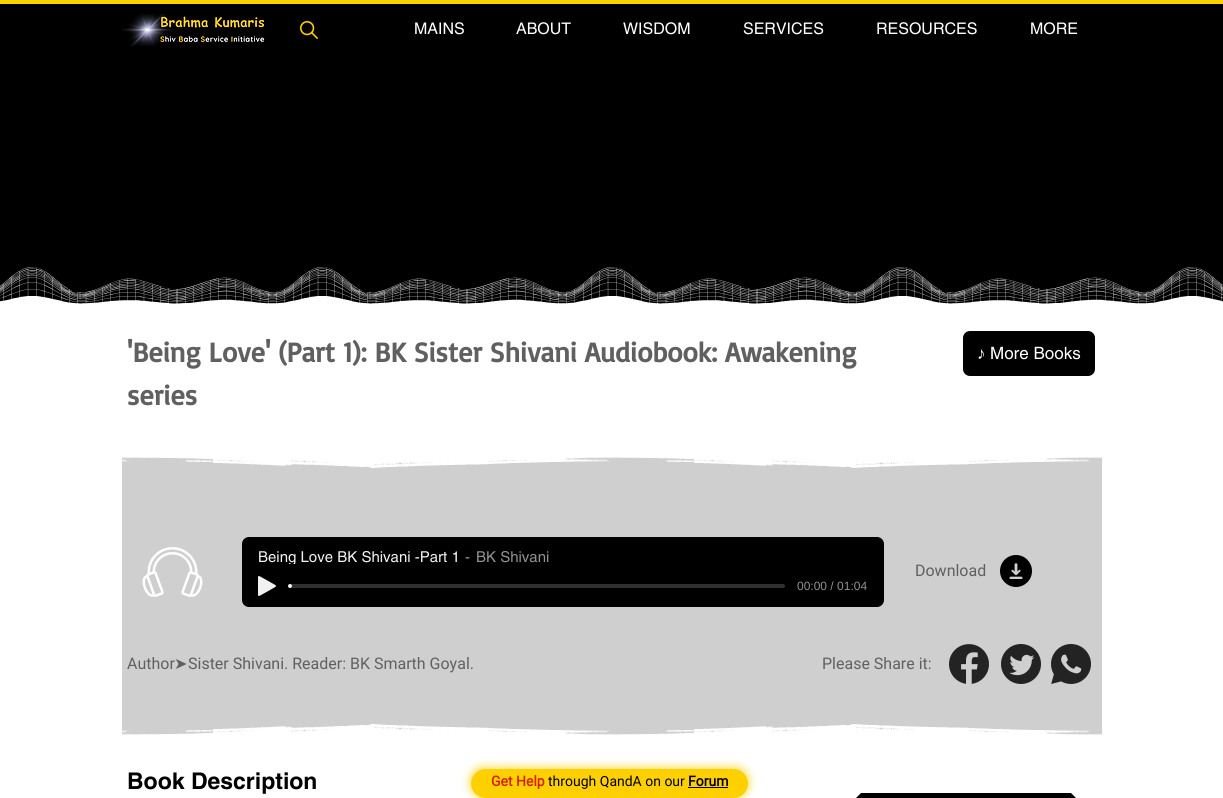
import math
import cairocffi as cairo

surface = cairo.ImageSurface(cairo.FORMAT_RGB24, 1223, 798)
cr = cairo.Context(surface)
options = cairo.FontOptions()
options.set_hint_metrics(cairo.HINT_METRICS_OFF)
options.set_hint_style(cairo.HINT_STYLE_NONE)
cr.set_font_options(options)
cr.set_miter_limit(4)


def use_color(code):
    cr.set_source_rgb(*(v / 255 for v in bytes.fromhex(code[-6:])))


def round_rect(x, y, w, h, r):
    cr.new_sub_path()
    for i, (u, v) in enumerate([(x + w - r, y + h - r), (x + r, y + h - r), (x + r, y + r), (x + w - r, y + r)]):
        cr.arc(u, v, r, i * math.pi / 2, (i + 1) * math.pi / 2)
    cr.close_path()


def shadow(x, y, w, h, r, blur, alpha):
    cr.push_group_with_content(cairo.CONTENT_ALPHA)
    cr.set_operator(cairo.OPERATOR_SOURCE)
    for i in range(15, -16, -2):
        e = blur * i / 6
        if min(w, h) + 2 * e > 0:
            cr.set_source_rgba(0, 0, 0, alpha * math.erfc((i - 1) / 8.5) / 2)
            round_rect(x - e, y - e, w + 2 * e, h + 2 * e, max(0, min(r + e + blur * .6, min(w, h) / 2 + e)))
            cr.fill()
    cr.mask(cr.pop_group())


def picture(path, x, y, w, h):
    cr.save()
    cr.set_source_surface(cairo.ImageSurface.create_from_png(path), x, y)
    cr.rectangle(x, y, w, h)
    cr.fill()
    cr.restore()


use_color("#ffffff")
cr.paint()
use_color("#ffd000")
cr.rectangle(0, 0, 1223, 4)
cr.fill()
use_color("#000000")
cr.rectangle(0, 4, 1223, 300)
cr.fill()
picture("img1.png", 122, 14, 143, 32)
picture("img2.png", 300, 21, 18, 18)
cr.select_font_face("helvetica")
cr.set_font_size(16)
use_color("#ffffff")
cr.move_to(414, 34)
cr.show_text("MAINS")
cr.move_to(516, 34)
cr.show_text("ABOUT")
cr.move_to(623, 34)
cr.show_text("WISDOM")
cr.move_to(743, 34)
cr.show_text("SERVICES")
cr.move_to(876, 34)
cr.show_text("RESOURCES")
cr.move_to(1030, 34)
cr.show_text("MORE")
picture("img3.png", 0, 267, 1223, 40)
cr.select_font_face("Basic", cairo.FONT_SLANT_NORMAL, cairo.FONT_WEIGHT_BOLD)
cr.set_font_size(28)
use_color("#606060")
cr.move_to(127, 362)
cr.show_text("'Being Love' (Part 1): BK Sister Shivani Audiobook: Awakening")
cr.move_to(127, 405)
cr.show_text("series")
use_color("#000000")
round_rect(964, 332, 130, 43, 6)
cr.fill_preserve()
cr.stroke()
cr.select_font_face("Liberation Sans")
cr.set_font_size(17)
use_color("#ffffff")
cr.move_to(977, 359)
cr.show_text("♪")
cr.select_font_face("helvetica")
cr.move_to(990, 359)
cr.show_text("More Books")
use_color("#cfcfcf")
cr.rectangle(122, 456, 980, 280)
cr.fill()
picture("img4.png", 122, 448, 980, 20)
picture("img5.png", 142, 547, 61, 50)
use_color("#000000")
round_rect(242, 537, 642, 70, 7)
cr.fill()
cr.save()
cr.rectangle(258, 549, 201, 15)
cr.clip()
cr.set_font_size(15)
use_color("#f2f2f2")
cr.move_to(258, 562)
cr.show_text("Being Love BK Shivani -Part 1")
cr.restore()
cr.set_font_size(15)
use_color("#919191")
cr.move_to(465, 562)
cr.show_text("-")
cr.move_to(476, 562)
cr.show_text("BK Shivani")
picture("img6.png", 258, 576, 18, 20)
use_color("#303030")
round_rect(290, 584, 495, 4, 2)
cr.fill()
use_color("#f2f2f2")
cr.arc(290, 586, 2, 0, 2 * math.pi)
cr.fill()
cr.select_font_face("Liberation Sans")
cr.set_font_size(12)
use_color("#919191")
cr.move_to(797, 590)
cr.show_text("00:00 / 01:04")
cr.select_font_face("Roboto")
cr.set_font_size(16)
use_color("#606060")
cr.move_to(915, 576)
cr.show_text("Download")
picture("img7.png", 1000, 555, 32, 32)
cr.move_to(127, 669)
cr.show_text("Author")
cr.select_font_face("DejaVu Sans")
cr.move_to(174, 669)
cr.show_text("➤")
cr.select_font_face("Roboto")
cr.move_to(188, 669)
cr.show_text("Sister Shivani. Reader: BK Smarth Goyal.")
cr.move_to(822, 669)
cr.show_text("Please Share it:")
picture("img8.png", 949, 644, 40, 40)
picture("img9.png", 1001, 644, 40, 40)
picture("img10.png", 1051, 644, 40, 40)
picture("img11.png", 122, 724, 980, 20)
cr.select_font_face("helvetica", cairo.FONT_SLANT_NORMAL, cairo.FONT_WEIGHT_BOLD)
cr.set_font_size(23)
use_color("#000000")
cr.move_to(127, 789)
cr.show_text("Book Description")
cr.save()
cr.rectangle(836, 793, 130, 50)
cr.clip()
cr.new_path()
cr.move_to(886, 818)
cr.line_to(836, 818)
cr.line_to(886, 768)
cr.close_path()
cr.fill()
cr.restore()
cr.rectangle(886, 793, 160, 5)
cr.fill()
cr.save()
cr.rectangle(966, 793, 130, 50)
cr.clip()
cr.new_path()
cr.move_to(1096, 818)
cr.line_to(1046, 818)
cr.line_to(1046, 768)
cr.close_path()
cr.fill()
cr.restore()
use_color("#ffd000")
shadow(469, 766, 281, 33, 16.5, 4, 0.6)
use_color("#ffd000")
round_rect(471, 769, 277, 29, 14.5)
cr.fill()
cr.select_font_face("Roboto", cairo.FONT_SLANT_NORMAL, cairo.FONT_WEIGHT_BOLD)
cr.set_font_size(14)
use_color("#d12300")
cr.move_to(491, 786)
cr.show_text("Get Help")
cr.select_font_face("Roboto")
use_color("#000000")
cr.move_to(548, 786)
cr.show_text("through QandA on our")
cr.select_font_face("Roboto", cairo.FONT_SLANT_NORMAL, cairo.FONT_WEIGHT_BOLD)
cr.move_to(688, 786)
cr.show_text("Forum")
cr.rectangle(688, 787, 40, 1)
cr.fill()
surface.write_to_png("result.png")
